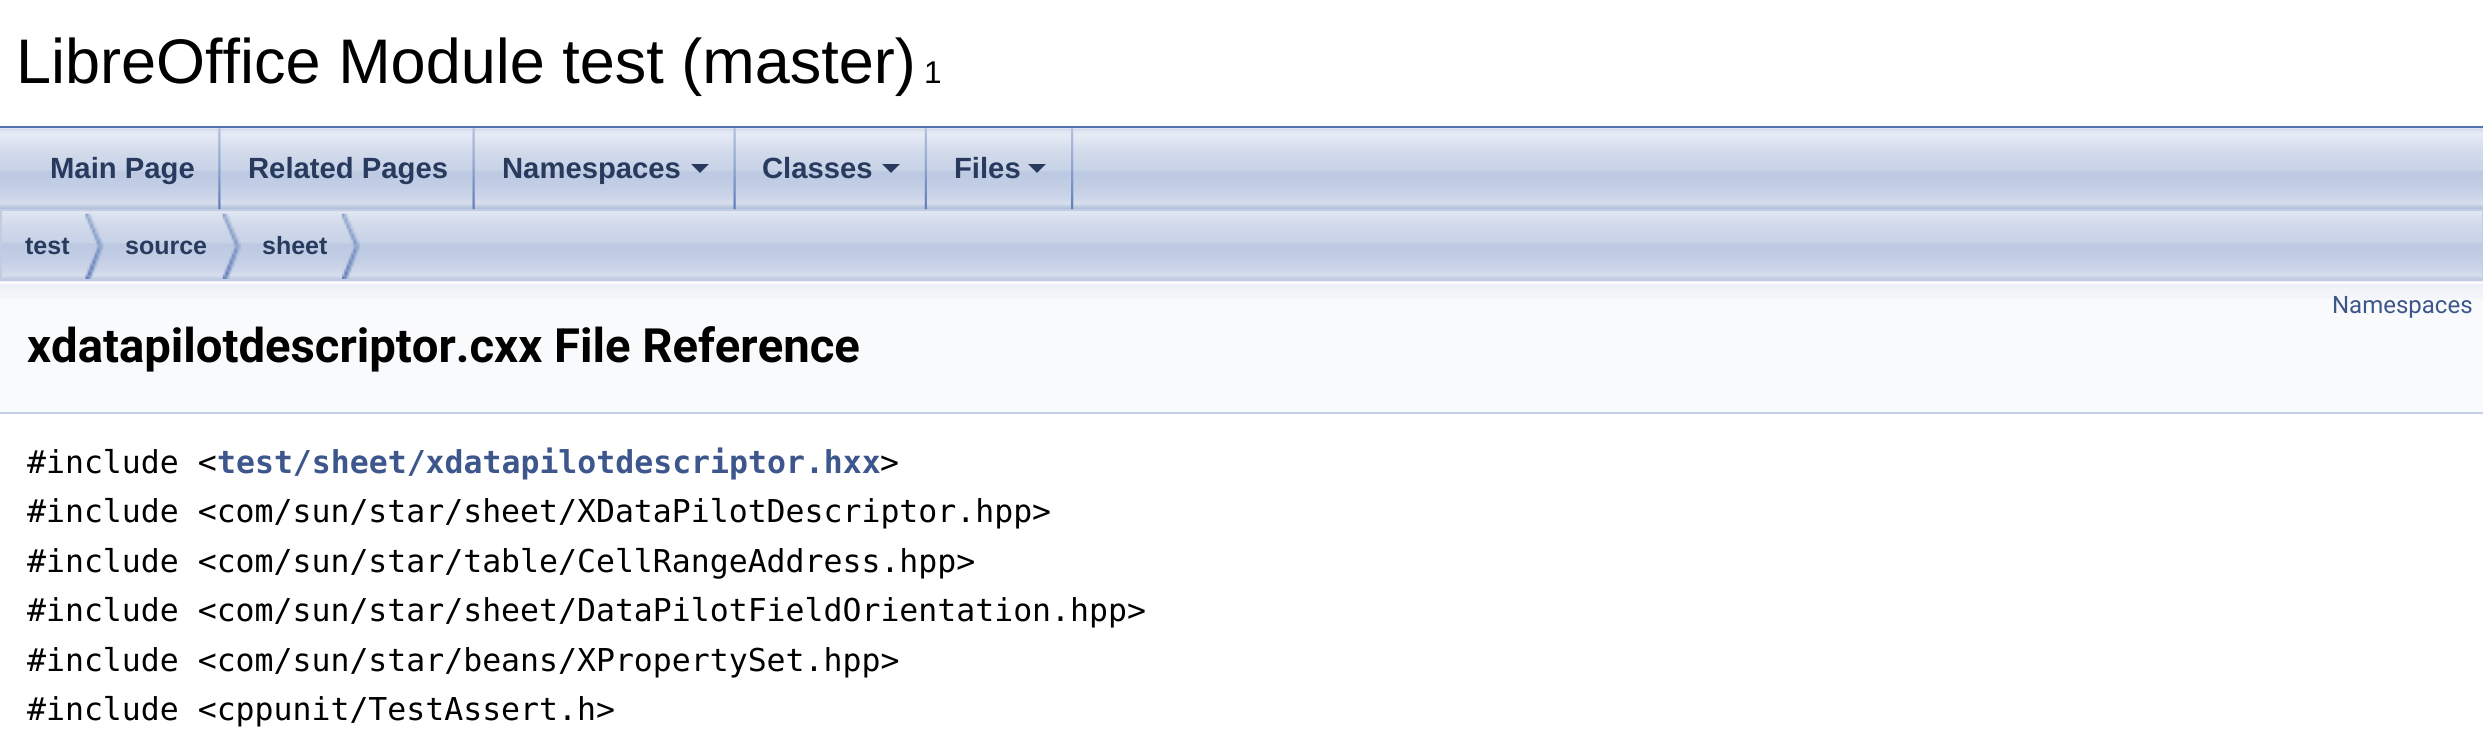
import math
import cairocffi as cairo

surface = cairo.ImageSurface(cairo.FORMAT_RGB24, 2483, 730)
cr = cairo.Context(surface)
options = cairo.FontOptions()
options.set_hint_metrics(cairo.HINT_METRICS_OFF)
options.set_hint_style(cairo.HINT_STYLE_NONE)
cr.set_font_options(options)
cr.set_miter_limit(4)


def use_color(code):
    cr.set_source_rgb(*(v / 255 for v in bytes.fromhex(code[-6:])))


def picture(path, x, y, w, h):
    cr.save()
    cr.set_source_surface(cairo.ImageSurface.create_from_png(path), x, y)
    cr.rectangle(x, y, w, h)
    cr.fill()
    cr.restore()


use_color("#ffffff")
cr.paint()
use_color("#5373b4")
cr.rectangle(0, 126, 2483, 2)
cr.fill()
cr.select_font_face("Liberation Sans")
cr.set_font_size(63)
use_color("#000000")
cr.move_to(16, 83)
cr.show_text("LibreOffice Module test (master)")
cr.set_font_size(31.5)
cr.move_to(924, 83)
cr.show_text("1")
picture("img1.png", 0, 128, 2483, 81)
use_color("#f9fafc")
cr.rectangle(0, 281, 2483, 131)
cr.fill()
picture("img10.png", 0, 281, 2483, 18)
picture("img6.png", 0, 211, 2483, 71)
cr.rectangle(1, 210, 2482, 70)
use_color("#c2cde4")
cr.stroke()
picture("img2.png", 218, 128, 3, 82)
cr.select_font_face("Liberation Sans", cairo.FONT_SLANT_NORMAL, cairo.FONT_WEIGHT_BOLD)
cr.set_font_size(29.25)
use_color("#283a5d")
cr.move_to(50, 178)
cr.show_text("Main Page")
picture("img3.png", 472, 128, 3, 82)
cr.move_to(248, 178)
cr.show_text("Related Pages")
picture("img3.png", 733, 128, 3, 82)
cr.move_to(502, 178)
cr.show_text("Namespaces")
cr.new_path()
cr.move_to(691, 164)
cr.line_to(709, 164)
cr.line_to(700, 173)
cr.close_path()
cr.fill()
picture("img4.png", 924, 128, 3, 82)
cr.move_to(762, 178)
cr.show_text("Classes")
cr.new_path()
cr.move_to(882, 164)
cr.line_to(900, 164)
cr.line_to(891, 173)
cr.close_path()
cr.fill()
picture("img5.png", 1071, 128, 3, 82)
cr.move_to(954, 178)
cr.show_text("Files")
cr.new_path()
cr.move_to(1028, 164)
cr.line_to(1046, 164)
cr.line_to(1037, 173)
cr.close_path()
cr.fill()
picture("img7.png", 85, 213, 19, 66)
cr.set_font_size(25)
cr.move_to(25, 254)
cr.show_text("test")
picture("img8.png", 222, 213, 19, 66)
cr.move_to(125, 254)
cr.show_text("source")
picture("img9.png", 342, 213, 18, 66)
cr.move_to(262, 254)
cr.show_text("sheet")
use_color("#c4cfe5")
cr.rectangle(0, 412, 2483, 2)
cr.fill()
cr.select_font_face("Roboto")
cr.set_font_size(24)
use_color("#3d578c")
cr.move_to(2332, 313)
cr.show_text("Namespaces")
cr.select_font_face("Roboto", cairo.FONT_SLANT_NORMAL, cairo.FONT_WEIGHT_BOLD)
cr.set_font_size(47.25)
use_color("#000000")
cr.move_to(27, 362)
cr.show_text("xdatapilotdescriptor.cxx File Reference")
cr.select_font_face("DejaVu Sans Mono")
cr.set_font_size(31.5)
cr.move_to(27, 473)
cr.show_text("#include <")
cr.select_font_face("DejaVu Sans Mono", cairo.FONT_SLANT_NORMAL, cairo.FONT_WEIGHT_BOLD)
use_color("#3d578c")
cr.move_to(217, 473)
cr.show_text("test/sheet/xdatapilotdescriptor.hxx")
cr.select_font_face("DejaVu Sans Mono")
use_color("#000000")
cr.move_to(880, 473)
cr.show_text(">")
cr.move_to(27, 522)
cr.show_text("#include <com/sun/star/sheet/XDataPilotDescriptor.hpp>")
cr.move_to(27, 572)
cr.show_text("#include <com/sun/star/table/CellRangeAddress.hpp>")
cr.move_to(27, 621)
cr.show_text("#include <com/sun/star/sheet/DataPilotFieldOrientation.hpp>")
cr.move_to(27, 671)
cr.show_text("#include <com/sun/star/beans/XPropertySet.hpp>")
cr.move_to(27, 720)
cr.show_text("#include <cppunit/TestAssert.h>")
surface.write_to_png("result.png")
